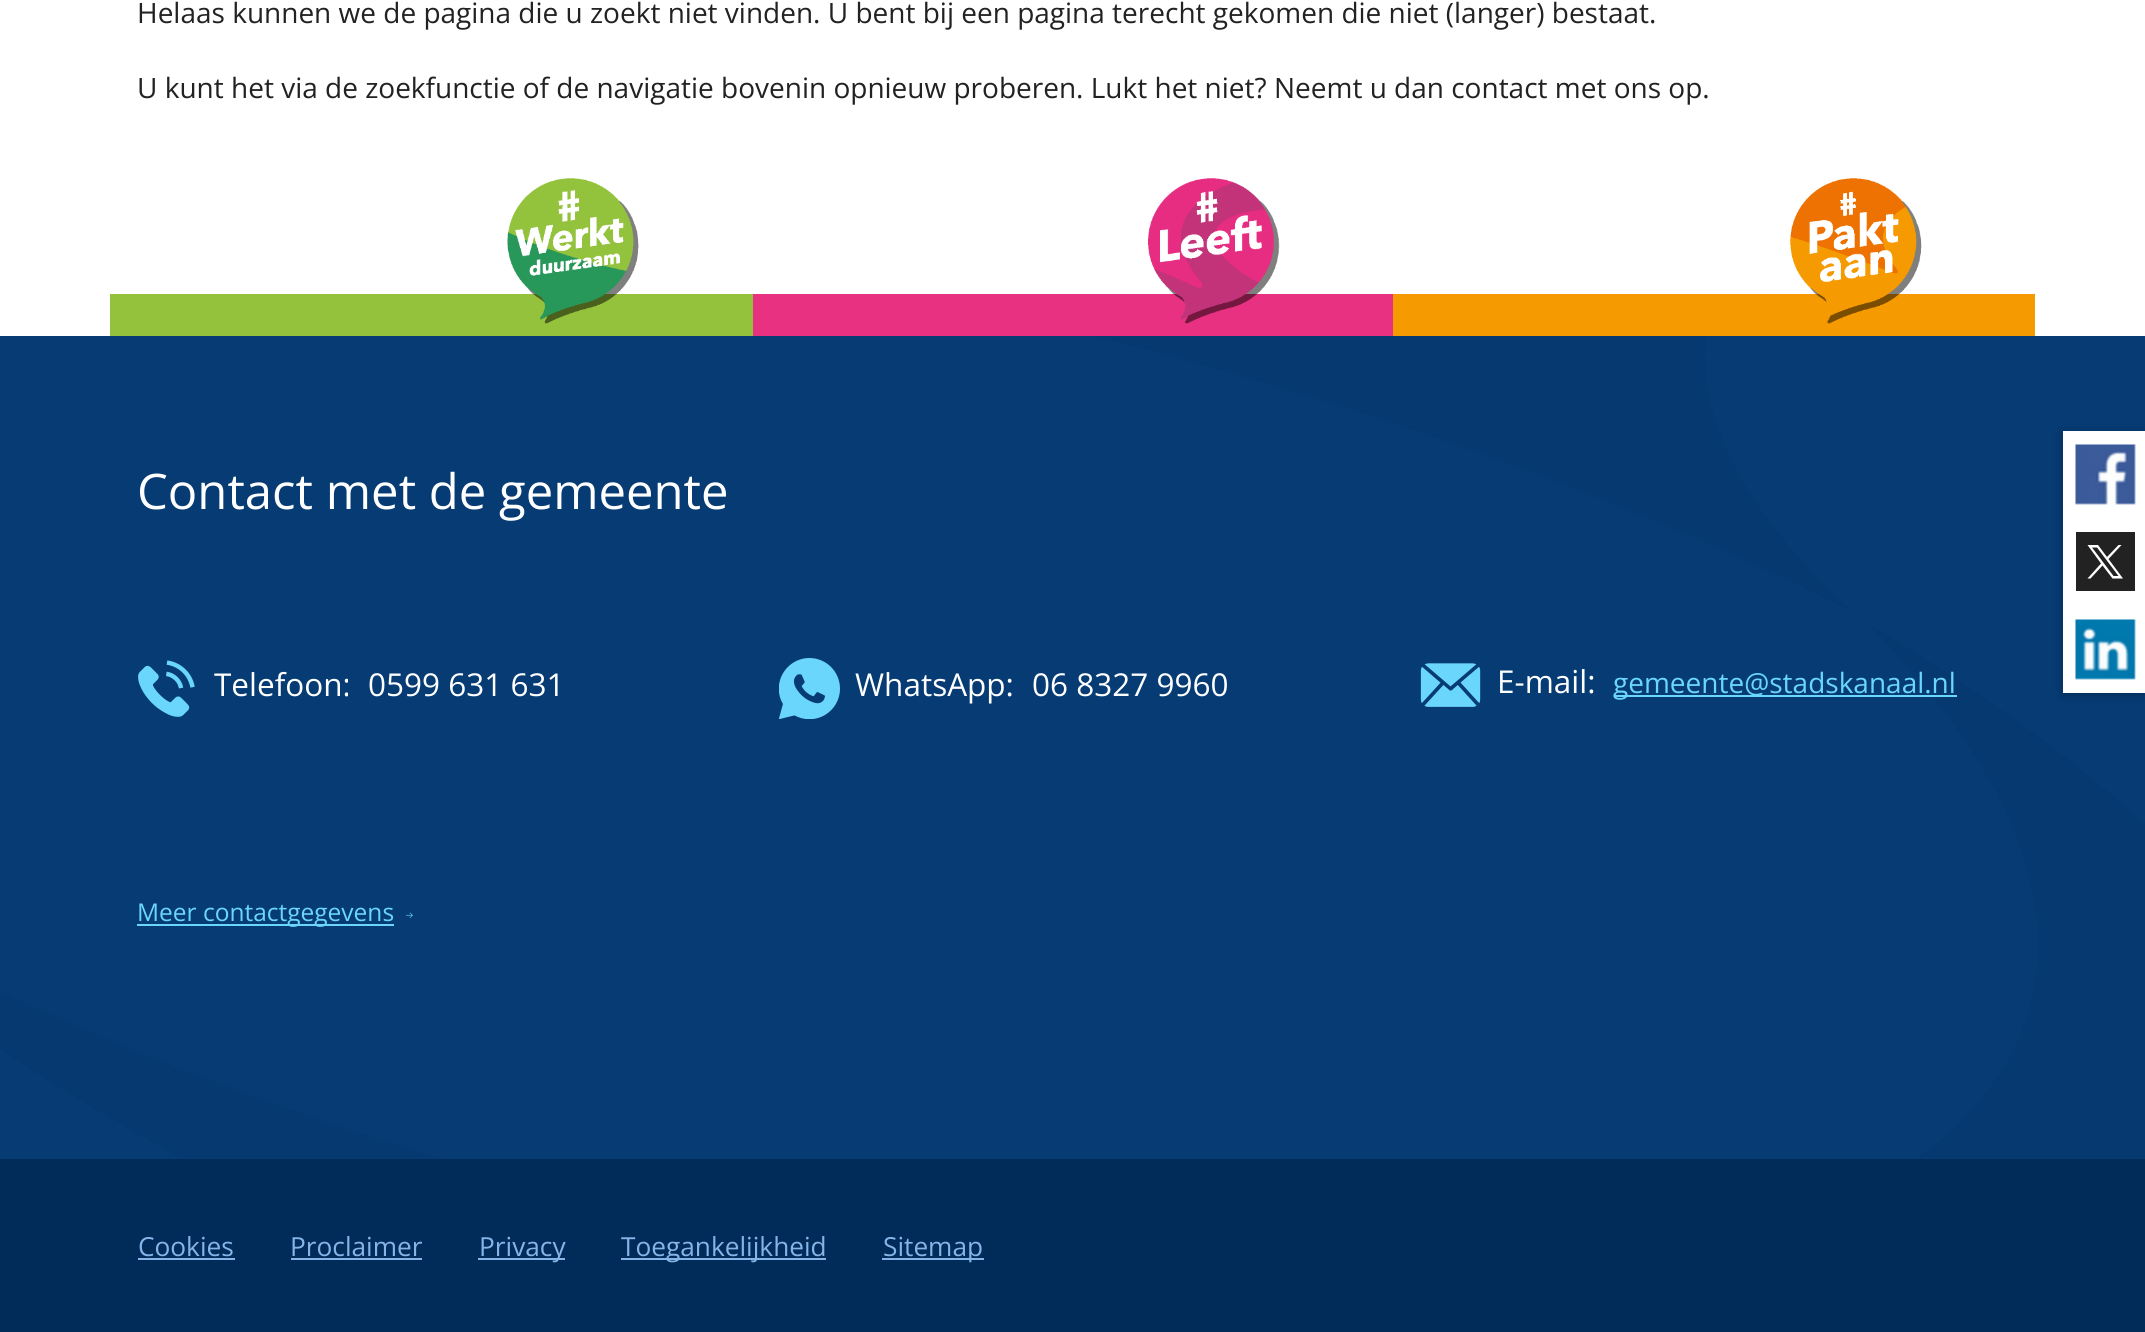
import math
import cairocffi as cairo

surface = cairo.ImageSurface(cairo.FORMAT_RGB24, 2145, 1332)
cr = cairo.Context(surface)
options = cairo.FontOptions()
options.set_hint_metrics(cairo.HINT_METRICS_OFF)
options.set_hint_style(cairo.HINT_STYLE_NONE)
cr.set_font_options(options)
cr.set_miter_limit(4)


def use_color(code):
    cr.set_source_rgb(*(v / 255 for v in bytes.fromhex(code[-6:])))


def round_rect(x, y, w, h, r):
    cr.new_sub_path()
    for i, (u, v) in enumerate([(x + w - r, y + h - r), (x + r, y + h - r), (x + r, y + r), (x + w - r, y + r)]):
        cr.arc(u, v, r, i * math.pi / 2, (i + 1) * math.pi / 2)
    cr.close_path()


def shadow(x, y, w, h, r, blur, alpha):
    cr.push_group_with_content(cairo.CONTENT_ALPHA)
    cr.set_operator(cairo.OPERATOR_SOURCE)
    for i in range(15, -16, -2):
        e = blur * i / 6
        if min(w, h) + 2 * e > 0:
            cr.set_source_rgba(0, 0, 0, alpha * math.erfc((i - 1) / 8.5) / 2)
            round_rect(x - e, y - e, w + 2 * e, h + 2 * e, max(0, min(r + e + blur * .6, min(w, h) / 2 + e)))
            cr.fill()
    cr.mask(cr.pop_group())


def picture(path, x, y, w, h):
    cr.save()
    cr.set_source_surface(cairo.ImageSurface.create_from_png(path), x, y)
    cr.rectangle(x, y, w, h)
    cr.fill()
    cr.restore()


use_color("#ffffff")
cr.paint()
cr.select_font_face("Open Sans")
cr.set_font_size(28)
use_color("#222222")
cr.move_to(137, 23)
cr.show_text("Helaas kunnen we de pagina die u zoekt niet vinden. U bent bij een pagina terecht gekomen die niet (langer) bestaat.")
cr.move_to(137, 98)
cr.show_text("U kunt het via de zoekfunctie of de navigatie bovenin opnieuw proberen. Lukt het niet? Neemt u dan contact met ons op.")
use_color("#95c23d")
cr.rectangle(110, 294, 643, 42)
cr.fill()
picture("img1.png", 507, 178, 132, 146)
use_color("#e83181")
cr.rectangle(753, 294, 640, 42)
cr.fill()
picture("img2.png", 1148, 178, 132, 146)
use_color("#f59a00")
cr.rectangle(1393, 294, 642, 42)
cr.fill()
picture("img3.png", 1790, 178, 132, 146)
use_color("#063b74")
cr.rectangle(0, 336, 2145, 823)
cr.fill()
picture("img4.png", 0, 336, 2145, 822)
cr.set_font_size(49)
use_color("#ffffff")
cr.move_to(137, 509)
cr.show_text("Contact met de gemeente")
picture("img5.png", 138, 660, 57, 57)
cr.set_font_size(31.5)
cr.move_to(214, 696)
cr.show_text("Telefoon:")
cr.move_to(368, 696)
cr.show_text("0599 631 631")
picture("img6.png", 779, 658, 61, 61)
cr.move_to(855, 696)
cr.show_text("WhatsApp:")
cr.move_to(1032, 696)
cr.show_text("06 8327 9960")
picture("img7.png", 1420, 663, 61, 44)
cr.move_to(1497, 693)
cr.show_text("E-mail:")
use_color("#6ad6fc")
cr.rectangle(1614, 695, 343, 2)
cr.fill()
cr.set_font_size(28)
cr.move_to(1613, 693)
cr.show_text("gemeente@stadskanaal.nl")
cr.rectangle(137, 924, 257, 2)
cr.fill()
cr.set_font_size(24.5)
cr.move_to(137, 921)
cr.show_text("Meer contactgegevens")
picture("img8.png", 406, 912, 7, 6)
use_color("#012b59")
cr.rectangle(0, 1159, 2145, 173)
cr.fill()
cr.set_font_size(26.25)
use_color("#85b5e8")
cr.move_to(138, 1256)
cr.show_text("Cookies")
cr.rectangle(138, 1258, 97, 2)
cr.fill()
cr.move_to(290, 1256)
cr.show_text("Proclaimer")
cr.rectangle(291, 1258, 131, 2)
cr.fill()
cr.rectangle(478, 1258, 87, 2)
cr.fill()
cr.move_to(479, 1256)
cr.show_text("Privacy")
cr.rectangle(621, 1258, 205, 2)
cr.fill()
cr.move_to(621, 1256)
cr.show_text("Toegankelijkheid")
cr.rectangle(882, 1258, 102, 2)
cr.fill()
cr.move_to(883, 1256)
cr.show_text("Sitemap")
use_color("#000000")
shadow(2062, 432, 82, 263, 0, 4.5, 0.25)
use_color("#ffffff")
cr.rectangle(2063, 431, 82, 262)
cr.fill()
picture("img9.png", 2075, 444, 61, 61)
use_color("#222222")
cr.rectangle(2076, 532, 59, 59)
cr.fill()
use_color("#ffffff")
cr.new_path()
cr.move_to(2087.5, 545)
cr.line_to(2101, 563.5)
cr.line_to(2087.5, 578.5)
cr.line_to(2090.5, 578.5)
cr.line_to(2102.5, 565.5)
cr.line_to(2112.5, 578.5)
cr.line_to(2123, 578.5)
cr.line_to(2108.5, 559)
cr.line_to(2121.5, 545)
cr.line_to(2118.5, 545)
cr.line_to(2107, 557)
cr.line_to(2098, 545)
cr.close_path()
cr.move_to(2092, 547.5)
cr.line_to(2097, 547.5)
cr.line_to(2118.5, 576)
cr.line_to(2113.5, 576)
cr.close_path()
cr.fill()
picture("img10.png", 2075, 619, 61, 61)
surface.write_to_png("result.png")
